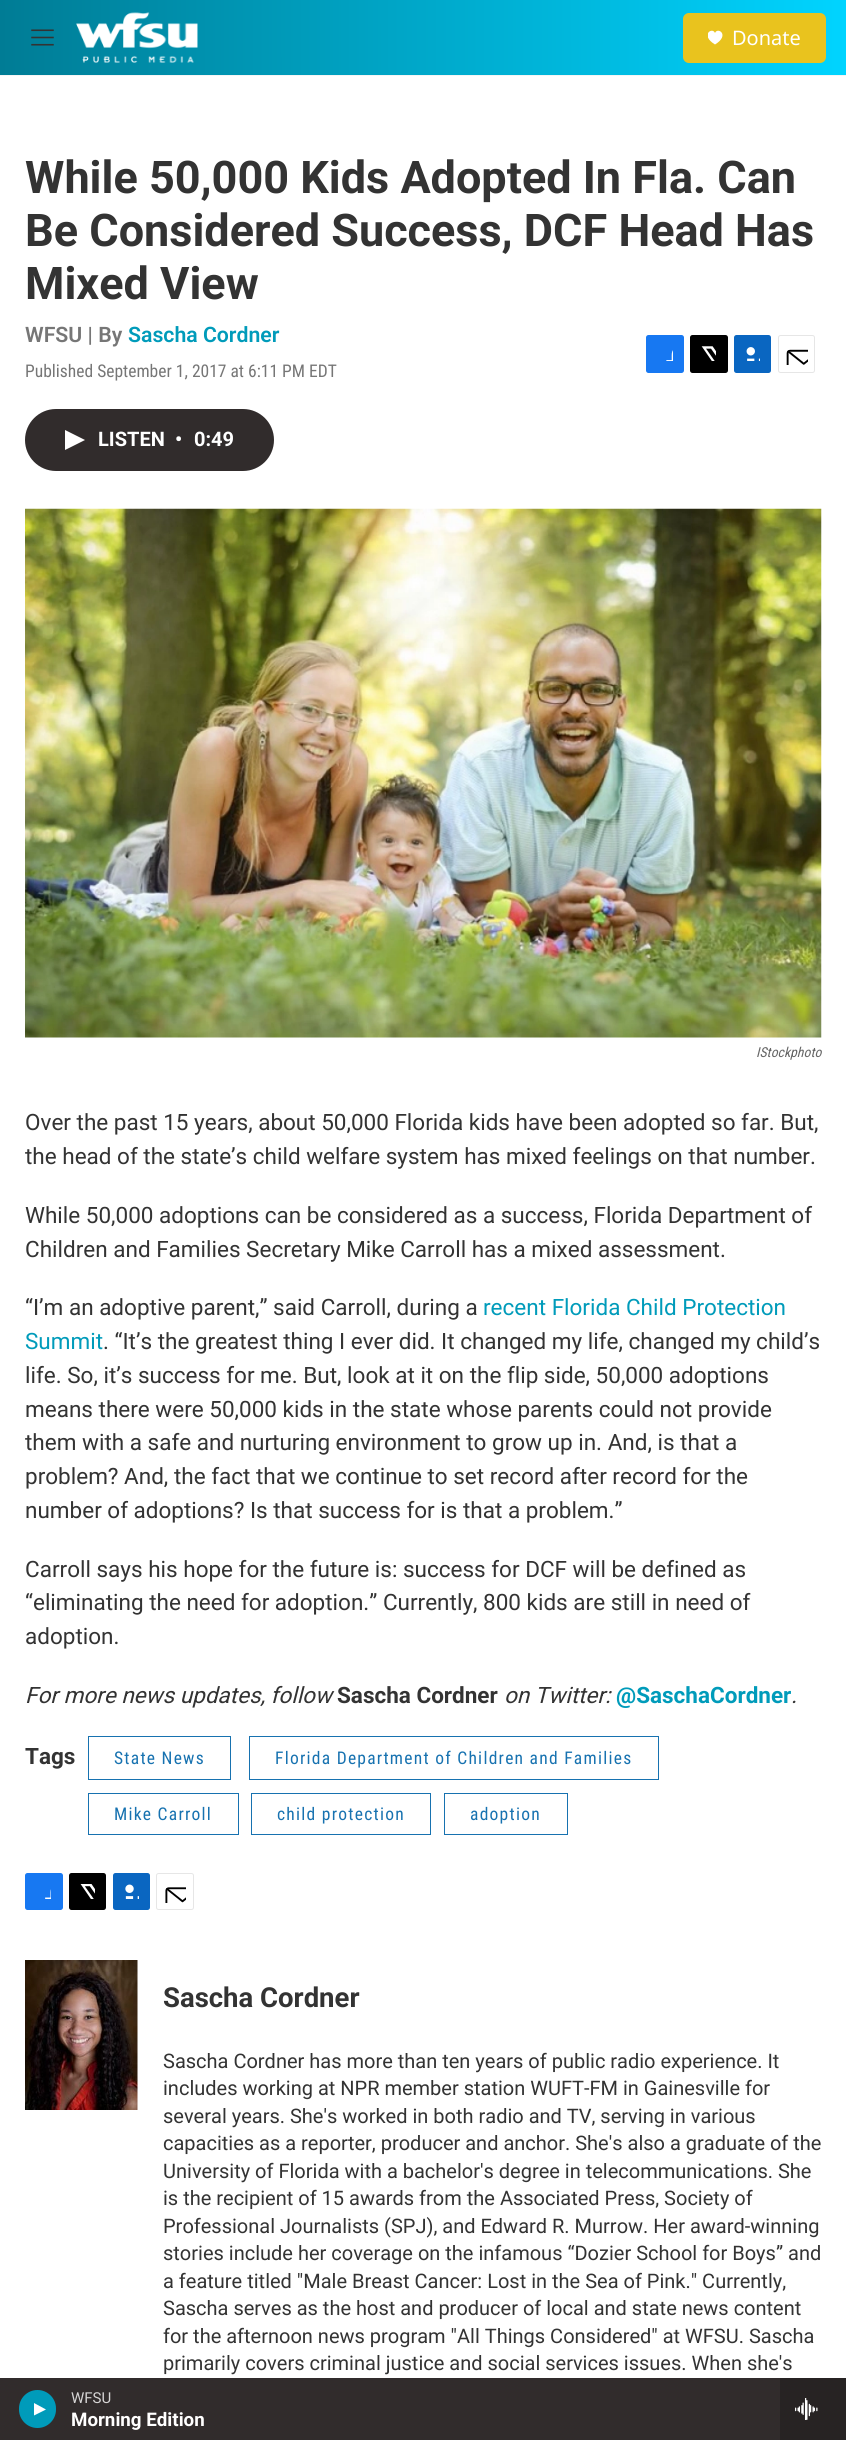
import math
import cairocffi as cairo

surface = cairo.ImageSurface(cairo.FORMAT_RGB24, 846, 2440)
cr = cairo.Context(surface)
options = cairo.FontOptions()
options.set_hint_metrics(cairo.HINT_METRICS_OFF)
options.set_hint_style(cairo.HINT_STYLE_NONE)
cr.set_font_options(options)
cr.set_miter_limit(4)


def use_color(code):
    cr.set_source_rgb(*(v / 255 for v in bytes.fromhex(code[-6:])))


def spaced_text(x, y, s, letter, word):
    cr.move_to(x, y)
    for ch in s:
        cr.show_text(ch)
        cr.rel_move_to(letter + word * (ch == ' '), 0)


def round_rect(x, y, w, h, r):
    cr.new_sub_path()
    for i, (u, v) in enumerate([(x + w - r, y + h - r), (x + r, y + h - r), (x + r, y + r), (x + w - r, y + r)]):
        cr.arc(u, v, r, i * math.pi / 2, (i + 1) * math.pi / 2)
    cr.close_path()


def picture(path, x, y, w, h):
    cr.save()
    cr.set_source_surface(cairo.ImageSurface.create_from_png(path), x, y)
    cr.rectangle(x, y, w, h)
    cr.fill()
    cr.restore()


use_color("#ffffff")
cr.paint()
gradient = cairo.LinearGradient(0, 38, 846, 37)
gradient.add_color_stop_rgba(0, 0, 0.486, 0.584, 1)
gradient.add_color_stop_rgba(0.35, 0, 0.608, 0.729, 1)
gradient.add_color_stop_rgba(1, 0, 0.831, 1, 1)
cr.set_source(gradient)
cr.rectangle(0, 0, 846, 75)
cr.fill()
use_color("#f5f5f5")
cr.rectangle(0, 75, 846, 1)
cr.fill()
picture("img1.png", 31, 29, 23, 17)
picture("img2.png", 76, 12, 122, 51)
use_color("#e9c31e")
round_rect(683, 13, 143, 50, 6)
cr.fill()
cr.save()
cr.rectangle(708, 30, 15, 15)
cr.clip()
use_color("#ffffff")
cr.new_path()
cr.move_to(715, 33)
cr.curve_to(712.5, 26.5, 699.5, 35, 715, 44.5)
cr.curve_to(730.5, 35, 717.5, 26.5, 715, 33)
cr.close_path()
cr.fill()
cr.restore()
cr.select_font_face("Noto Sans")
cr.set_font_size(20)
use_color("#ffffff")
cr.move_to(732, 45)
cr.show_text("Donate")
use_color("#312c2c")
cr.rectangle(0, 2378, 780, 62)
cr.fill()
use_color("#009bba")
round_rect(19, 2390, 37, 38, 18.5)
cr.fill()
use_color("#ffffff")
cr.new_path()
cr.move_to(34, 2403)
cr.line_to(46, 2409.5)
cr.line_to(34, 2415.5)
cr.close_path()
cr.fill()
cr.select_font_face("Roboto")
cr.set_font_size(15)
use_color("#d6d5d5")
cr.move_to(71, 2403)
cr.show_text("WFSU")
cr.select_font_face("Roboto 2", cairo.FONT_SLANT_NORMAL, cairo.FONT_WEIGHT_BOLD)
cr.set_font_size(18.75)
use_color("#ffffff")
cr.move_to(71, 2426)
cr.show_text("Morning Edition")
use_color("#272323")
cr.rectangle(780, 2378, 66, 62)
cr.fill()
picture("img3.png", 795, 2398, 23, 22)
cr.select_font_face("Roboto", cairo.FONT_SLANT_NORMAL, cairo.FONT_WEIGHT_BOLD)
cr.set_font_size(45)
use_color("#333333")
cr.move_to(25, 193)
cr.show_text("While 50,000 Kids Adopted In Fla. Can")
cr.move_to(25, 246)
cr.show_text("Be Considered Success, DCF Head Has")
cr.move_to(25, 299)
cr.show_text("Mixed View")
cr.select_font_face("Roboto SemiBold")
cr.set_font_size(21.25)
use_color("#767676")
cr.move_to(25, 342)
cr.show_text("WFSU | By")
use_color("#009bba")
cr.move_to(128, 342)
cr.show_text("Sascha Cordner")
cr.select_font_face("Roboto Condensed")
cr.set_font_size(17.5)
use_color("#767676")
cr.move_to(25, 377)
cr.show_text("Published September 1, 2017 at 6:11 PM EDT")
use_color("#1778f2")
round_rect(646, 335, 38, 38, 2.5)
cr.fill()
picture("img4.png", 666, 350, 7, 11)
use_color("#000000")
round_rect(690, 335, 38, 38, 2.5)
cr.fill()
picture("img5.png", 701, 346, 15, 15)
use_color("#0a66c1")
round_rect(734, 335, 37, 38, 2.5)
cr.fill()
picture("img6.png", 746, 347, 14, 14)
round_rect(778.5, 335.5, 36, 37, 2)
use_color("#e6e6e6")
cr.set_line_width(1)
cr.stroke()
picture("img7.png", 786, 349, 22, 16)
use_color("#312c2c")
round_rect(25, 409, 249, 62, 31)
cr.fill()
use_color("#ffffff")
cr.new_path()
cr.move_to(65, 430)
cr.line_to(85, 440)
cr.line_to(65, 450)
cr.close_path()
cr.fill()
cr.select_font_face("Roboto 2", cairo.FONT_SLANT_NORMAL, cairo.FONT_WEIGHT_BOLD)
cr.set_font_size(20)
cr.move_to(98, 446)
cr.show_text("LISTEN")
cr.move_to(175, 446)
cr.show_text("•")
cr.move_to(194, 446)
cr.show_text("0:49")
picture("img8.png", 25, 508, 797, 530)
cr.select_font_face("Roboto Condensed", cairo.FONT_SLANT_ITALIC)
cr.set_font_size(13.75)
use_color("#666666")
cr.move_to(756, 1057)
cr.show_text("IStockphoto")
cr.select_font_face("Roboto")
cr.set_font_size(22.5)
use_color("#333333")
cr.move_to(25, 1130)
cr.show_text("Over the past 15 years, about 50,000 Florida kids have been adopted so far. But,")
cr.move_to(25, 1164)
cr.show_text("the head of the state’s child welfare system has mixed feelings on that number.")
cr.move_to(25, 1223)
cr.show_text("While 50,000 adoptions can be considered as a success, Florida Department of")
cr.move_to(25, 1257)
cr.show_text("Children and Families Secretary Mike Carroll has a mixed assessment.")
cr.move_to(25, 1315)
cr.show_text("“I’m an adoptive parent,” said Carroll, during a")
use_color("#009bba")
cr.move_to(483, 1315)
cr.show_text("recent Florida Child Protection")
cr.move_to(25, 1349)
cr.show_text("Summit")
use_color("#333333")
cr.move_to(103, 1349)
cr.show_text(". “It’s the greatest thing I ever did. It changed my life, changed my child’s")
cr.move_to(25, 1383)
cr.show_text("life. So, it’s success for me. But, look at it on the flip side, 50,000 adoptions")
cr.move_to(25, 1417)
cr.show_text("means there were 50,000 kids in the state whose parents could not provide")
cr.move_to(25, 1450)
cr.show_text("them with a safe and nurturing environment to grow up in. And, is that a")
cr.move_to(25, 1484)
cr.show_text("problem? And, the fact that we continue to set record after record for the")
cr.move_to(25, 1518)
cr.show_text("number of adoptions? Is that success for is that a problem.”")
cr.move_to(25, 1577)
cr.show_text("Carroll says his hope for the future is: success for DCF will be defined as")
cr.move_to(25, 1610)
cr.show_text("“eliminating the need for adoption.” Currently, 800 kids are still in need of")
cr.move_to(25, 1644)
cr.show_text("adoption.")
cr.select_font_face("Roboto", cairo.FONT_SLANT_ITALIC)
cr.move_to(25, 1703)
cr.show_text("For more news updates, follow")
cr.select_font_face("Roboto 2", cairo.FONT_SLANT_NORMAL, cairo.FONT_WEIGHT_BOLD)
cr.move_to(337, 1703)
cr.show_text("Sascha Cordner")
cr.select_font_face("Roboto", cairo.FONT_SLANT_ITALIC)
cr.move_to(504, 1703)
cr.show_text("on Twitter:")
cr.select_font_face("Roboto 2", cairo.FONT_SLANT_NORMAL, cairo.FONT_WEIGHT_BOLD)
use_color("#009bba")
cr.move_to(616, 1703)
cr.show_text("@SaschaCordner")
cr.select_font_face("Roboto", cairo.FONT_SLANT_ITALIC)
use_color("#333333")
cr.move_to(791, 1703)
cr.show_text(".")
cr.select_font_face("Roboto", cairo.FONT_SLANT_NORMAL, cairo.FONT_WEIGHT_BOLD)
cr.move_to(25, 1764)
cr.show_text("Tags")
cr.rectangle(88.5, 1736.5, 142, 43)
use_color("#1772b0")
cr.stroke()
cr.select_font_face("Roboto Condensed")
cr.set_font_size(17.5)
spaced_text(114, 1764, "State News", 1.25, 0)
cr.rectangle(249.5, 1736.5, 409, 43)
cr.stroke()
spaced_text(275, 1764, "Florida Department of Children and Families", 1.25, 0)
cr.rectangle(88.5, 1793.5, 150, 41)
cr.stroke()
spaced_text(114, 1820, "Mike Carroll", 1.25, 0)
cr.rectangle(251.5, 1793.5, 179, 41)
cr.stroke()
spaced_text(277, 1820, "child protection", 1.25, 0)
cr.rectangle(444.5, 1793.5, 123, 41)
cr.stroke()
spaced_text(470, 1820, "adoption", 1.25, 0)
use_color("#1778f2")
round_rect(25, 1873, 38, 37, 2.5)
cr.fill()
picture("img9.png", 45, 1889, 6, 10)
use_color("#000000")
round_rect(69, 1873, 37, 37, 2.5)
cr.fill()
picture("img10.png", 80, 1884, 15, 15)
use_color("#0a66c1")
round_rect(113, 1873, 37, 37, 2.5)
cr.fill()
picture("img11.png", 125, 1884, 14, 15)
round_rect(156.5, 1873.5, 37, 36, 2)
use_color("#e6e6e6")
cr.stroke()
picture("img12.png", 165, 1887, 21, 16)
picture("img13.png", 25, 1960, 113, 150)
cr.select_font_face("Roboto", cairo.FONT_SLANT_NORMAL, cairo.FONT_WEIGHT_BOLD)
cr.set_font_size(27.5)
use_color("#333333")
cr.move_to(163, 2007)
cr.show_text("Sascha Cordner")
cr.select_font_face("Roboto")
cr.set_font_size(20)
cr.move_to(163, 2068)
cr.show_text("Sascha Cordner has more than ten years of public radio experience. It")
cr.move_to(163, 2095)
cr.show_text("includes working at NPR member station WUFT-FM in Gainesville for")
cr.move_to(163, 2123)
cr.show_text("several years. She's worked in both radio and TV, serving in various")
cr.move_to(163, 2150)
cr.show_text("capacities as a reporter, producer and anchor. She's also a graduate of the")
cr.move_to(163, 2178)
cr.show_text("University of Florida with a bachelor's degree in telecommunications. She")
cr.move_to(163, 2205)
cr.show_text("is the recipient of 15 awards from the Associated Press, Society of")
cr.move_to(163, 2233)
cr.show_text("Professional Journalists (SPJ), and Edward R. Murrow. Her award-winning")
cr.move_to(163, 2260)
cr.show_text("stories include her coverage on the infamous “Dozier School for Boys” and")
cr.move_to(163, 2288)
cr.show_text("a feature titled \"Male Breast Cancer: Lost in the Sea of Pink.\" Currently,")
cr.move_to(163, 2315)
cr.show_text("Sascha serves as the host and producer of local and state news content")
cr.move_to(163, 2343)
cr.show_text("for the afternoon news program \"All Things Considered\" at WFSU. Sascha")
cr.move_to(163, 2370)
cr.show_text("primarily covers criminal justice and social services issues. When she's")
surface.write_to_png("result.png")
